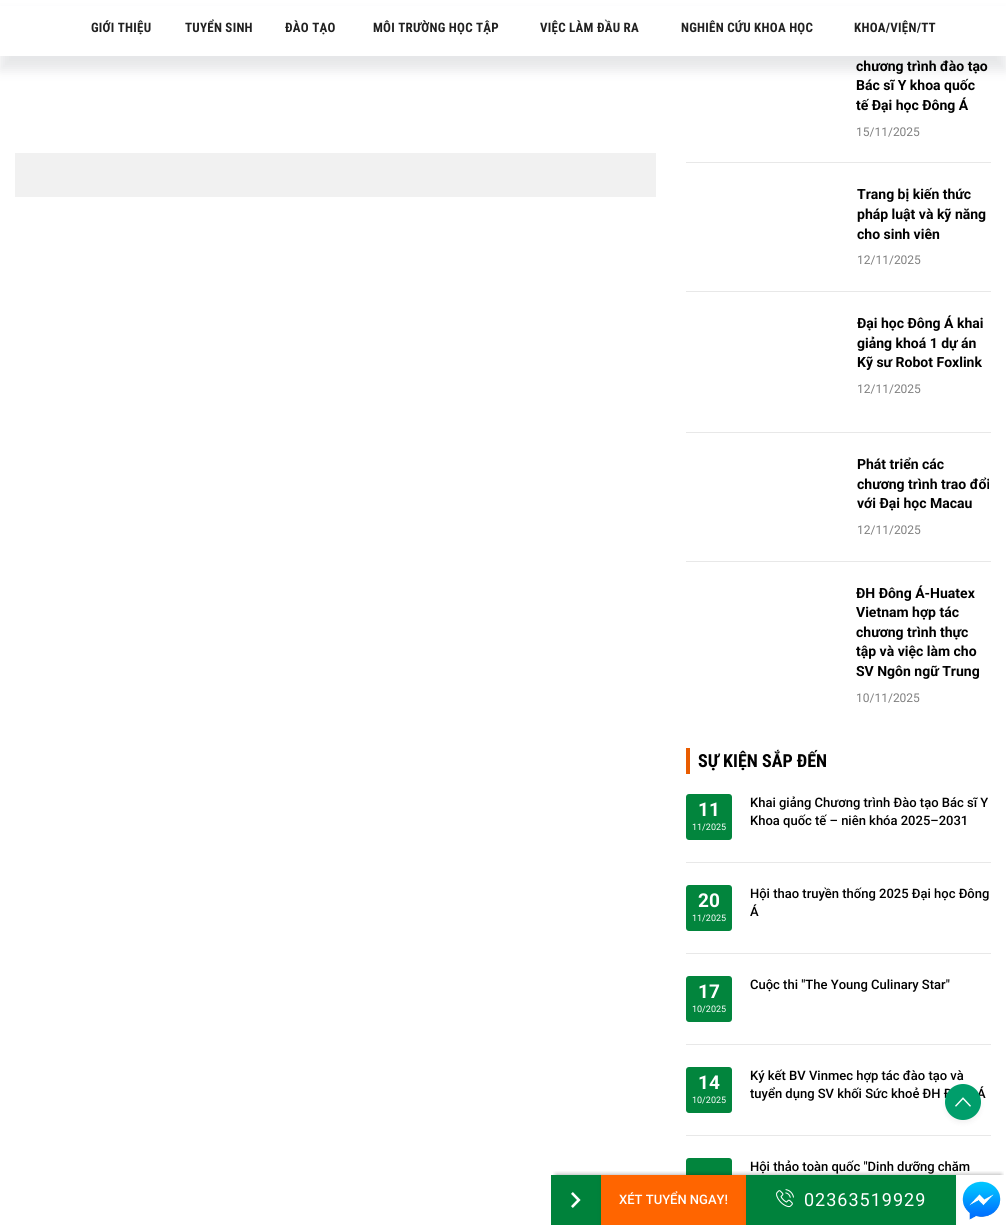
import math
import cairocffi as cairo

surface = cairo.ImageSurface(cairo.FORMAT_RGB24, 1006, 1225)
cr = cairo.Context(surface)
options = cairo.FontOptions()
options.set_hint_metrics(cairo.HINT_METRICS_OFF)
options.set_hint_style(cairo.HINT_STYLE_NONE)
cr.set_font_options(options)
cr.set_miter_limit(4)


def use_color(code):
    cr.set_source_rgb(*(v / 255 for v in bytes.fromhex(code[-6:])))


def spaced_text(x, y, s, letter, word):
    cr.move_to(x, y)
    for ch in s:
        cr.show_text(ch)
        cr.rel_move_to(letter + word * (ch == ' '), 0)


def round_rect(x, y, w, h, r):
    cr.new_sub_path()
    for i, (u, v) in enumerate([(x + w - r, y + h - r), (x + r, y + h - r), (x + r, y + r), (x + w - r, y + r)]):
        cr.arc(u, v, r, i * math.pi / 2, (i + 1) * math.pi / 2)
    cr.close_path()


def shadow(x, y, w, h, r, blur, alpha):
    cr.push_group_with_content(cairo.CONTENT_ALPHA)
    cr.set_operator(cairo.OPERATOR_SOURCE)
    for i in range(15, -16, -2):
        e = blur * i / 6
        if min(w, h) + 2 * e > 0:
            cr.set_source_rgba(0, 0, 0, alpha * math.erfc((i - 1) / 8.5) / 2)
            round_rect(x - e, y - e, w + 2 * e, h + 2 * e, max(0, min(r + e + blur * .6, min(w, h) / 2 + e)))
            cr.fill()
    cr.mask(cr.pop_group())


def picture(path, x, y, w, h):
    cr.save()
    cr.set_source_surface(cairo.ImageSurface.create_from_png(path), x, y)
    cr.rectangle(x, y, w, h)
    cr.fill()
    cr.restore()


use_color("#ffffff")
cr.paint()
use_color("#2d3440")
shadow(0, 14, 1006, 56, 0, 6, 0.12)
use_color("#ffffff")
cr.rectangle(0, 6, 1006, 50)
cr.fill()
cr.select_font_face("Roboto Condensed", cairo.FONT_SLANT_NORMAL, cairo.FONT_WEIGHT_BOLD)
cr.set_font_size(13)
use_color("#212121")
spaced_text(91, 32, "GIỚI THIỆU", 0.25, 0)
spaced_text(185, 32, "TUYỂN SINH", 0.25, 0)
spaced_text(285, 32, "ĐÀO TẠO", 0.25, 0)
spaced_text(373, 32, "MÔI TRƯỜNG HỌC TẬP", 0.25, 0)
spaced_text(540, 32, "VIỆC LÀM ĐẦU RA", 0.25, 0)
spaced_text(681, 32, "NGHIÊN CỨU KHOA HỌC", 0.25, 0)
spaced_text(854, 32, "KHOA/VIỆN/TT", 0.25, 0)
use_color("#f1f1f1")
cr.rectangle(15, 153, 641, 44)
cr.fill()
cr.select_font_face("Roboto", cairo.FONT_SLANT_NORMAL, cairo.FONT_WEIGHT_BOLD)
cr.set_font_size(14)
use_color("#000000")
cr.move_to(856, 71)
cr.show_text("chương trình đào tạo")
cr.move_to(856, 90)
cr.show_text("Bác sĩ Y khoa quốc")
cr.move_to(856, 110)
cr.show_text("tế Đại học Đông Á")
cr.select_font_face("Roboto")
cr.set_font_size(12)
use_color("#7f7f7f")
cr.move_to(856, 136)
cr.show_text("15/11/2025")
use_color("#e8e8e8")
cr.rectangle(686, 162, 305, 1)
cr.fill()
cr.select_font_face("Roboto", cairo.FONT_SLANT_NORMAL, cairo.FONT_WEIGHT_BOLD)
cr.set_font_size(14)
use_color("#000000")
cr.move_to(857, 199)
cr.show_text("Trang bị kiến thức")
cr.move_to(857, 219)
cr.show_text("pháp luật và kỹ năng")
cr.move_to(857, 239)
cr.show_text("cho sinh viên")
cr.select_font_face("Roboto")
cr.set_font_size(12)
use_color("#7f7f7f")
cr.move_to(857, 264)
cr.show_text("12/11/2025")
use_color("#e8e8e8")
cr.rectangle(686, 291, 305, 1)
cr.fill()
cr.select_font_face("Roboto", cairo.FONT_SLANT_NORMAL, cairo.FONT_WEIGHT_BOLD)
cr.set_font_size(14)
use_color("#000000")
cr.move_to(857, 328)
cr.show_text("Đại học Đông Á khai")
cr.move_to(857, 348)
cr.show_text("giảng khoá 1 dự án")
cr.move_to(857, 367)
cr.show_text("Kỹ sư Robot Foxlink")
cr.select_font_face("Roboto")
cr.set_font_size(12)
use_color("#7f7f7f")
cr.move_to(857, 393)
cr.show_text("12/11/2025")
use_color("#e8e8e8")
cr.rectangle(686, 432, 305, 1)
cr.fill()
cr.select_font_face("Roboto", cairo.FONT_SLANT_NORMAL, cairo.FONT_WEIGHT_BOLD)
cr.set_font_size(14)
use_color("#000000")
cr.move_to(857, 469)
cr.show_text("Phát triển các")
cr.move_to(857, 489)
cr.show_text("chương trình trao đổi")
cr.move_to(857, 508)
cr.show_text("với Đại học Macau")
cr.select_font_face("Roboto")
cr.set_font_size(12)
use_color("#7f7f7f")
cr.move_to(857, 534)
cr.show_text("12/11/2025")
use_color("#e8e8e8")
cr.rectangle(686, 561, 305, 1)
cr.fill()
cr.select_font_face("Roboto", cairo.FONT_SLANT_NORMAL, cairo.FONT_WEIGHT_BOLD)
cr.set_font_size(14)
use_color("#000000")
cr.move_to(856, 598)
cr.show_text("ĐH Đông Á-Huatex")
cr.move_to(856, 617)
cr.show_text("Vietnam hợp tác")
cr.move_to(856, 637)
cr.show_text("chương trình thực")
cr.move_to(856, 656)
cr.show_text("tập và việc làm cho")
cr.move_to(856, 676)
cr.show_text("SV Ngôn ngữ Trung")
cr.select_font_face("Roboto")
cr.set_font_size(12)
use_color("#7f7f7f")
cr.move_to(856, 702)
cr.show_text("10/11/2025")
use_color("#e95c00")
cr.rectangle(686, 748, 4, 26)
cr.fill()
cr.select_font_face("Roboto Condensed", cairo.FONT_SLANT_NORMAL, cairo.FONT_WEIGHT_BOLD)
cr.set_font_size(18)
use_color("#000000")
cr.move_to(698, 767)
cr.show_text("SỰ KIỆN SẮP ĐẾN")
use_color("#02853d")
round_rect(686, 794, 46, 46, 3)
cr.fill()
cr.select_font_face("Roboto", cairo.FONT_SLANT_NORMAL, cairo.FONT_WEIGHT_BOLD)
cr.set_font_size(19)
use_color("#ffffff")
cr.move_to(698, 816)
cr.show_text("11")
cr.select_font_face("Roboto")
cr.set_font_size(9)
cr.move_to(692, 830)
cr.show_text("11/2025")
cr.select_font_face("Roboto Medium")
cr.set_font_size(13)
use_color("#000000")
cr.move_to(750, 807)
cr.show_text("Khai giảng Chương trình Đào tạo Bác sĩ Y")
cr.move_to(750, 825)
cr.show_text("Khoa quốc tế – niên khóa 2025–2031")
use_color("#e8e8e8")
cr.rectangle(686, 862, 305, 1)
cr.fill()
use_color("#02853d")
round_rect(686, 885, 46, 46, 3)
cr.fill()
cr.select_font_face("Roboto", cairo.FONT_SLANT_NORMAL, cairo.FONT_WEIGHT_BOLD)
cr.set_font_size(19)
use_color("#ffffff")
cr.move_to(698, 907)
cr.show_text("20")
cr.select_font_face("Roboto")
cr.set_font_size(9)
cr.move_to(692, 921)
cr.show_text("11/2025")
cr.select_font_face("Roboto Medium")
cr.set_font_size(13)
use_color("#000000")
cr.move_to(750, 898)
cr.show_text("Hội thao truyền thống 2025 Đại học Đông")
cr.move_to(750, 916)
cr.show_text("Á")
use_color("#e8e8e8")
cr.rectangle(686, 953, 305, 1)
cr.fill()
use_color("#02853d")
round_rect(686, 976, 46, 46, 3)
cr.fill()
cr.select_font_face("Roboto", cairo.FONT_SLANT_NORMAL, cairo.FONT_WEIGHT_BOLD)
cr.set_font_size(19)
use_color("#ffffff")
cr.move_to(698, 998)
cr.show_text("17")
cr.select_font_face("Roboto")
cr.set_font_size(9)
cr.move_to(692, 1012)
cr.show_text("10/2025")
cr.select_font_face("Roboto Medium")
cr.set_font_size(13)
use_color("#000000")
cr.move_to(750, 989)
cr.show_text("Cuộc thi \"The Young Culinary Star\"")
use_color("#e8e8e8")
cr.rectangle(686, 1044, 305, 1)
cr.fill()
use_color("#02853d")
round_rect(686, 1067, 46, 46, 3)
cr.fill()
cr.select_font_face("Roboto", cairo.FONT_SLANT_NORMAL, cairo.FONT_WEIGHT_BOLD)
cr.set_font_size(19)
use_color("#ffffff")
cr.move_to(698, 1089)
cr.show_text("14")
cr.select_font_face("Roboto")
cr.set_font_size(9)
cr.move_to(692, 1103)
cr.show_text("10/2025")
cr.select_font_face("Roboto Medium")
cr.set_font_size(13)
use_color("#000000")
cr.move_to(750, 1080)
cr.show_text("Ký kết BV Vinmec hợp tác đào tạo và")
cr.move_to(750, 1098)
cr.show_text("tuyển dụng SV khối Sức khoẻ ĐH Đ")
cr.move_to(977, 1098)
cr.show_text("Á")
use_color("#e8e8e8")
cr.rectangle(686, 1135, 305, 1)
cr.fill()
use_color("#02853d")
round_rect(686, 1158, 46, 46, 3)
cr.fill()
use_color("#000000")
cr.move_to(750, 1171)
cr.show_text("Hội thảo toàn quốc \"Dinh dưỡng chăm")
use_color("#000000")
shadow(945, 1087, 36, 36, 18, 2.5, 0.05)
use_color("#009e6b")
cr.arc(963, 1102, 18, 0, 2 * math.pi)
cr.fill()
picture("img1.png", 955, 1097, 16, 10)
cr.save()
cr.rectangle(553, 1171, 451, 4)
cr.clip()
use_color("#000000")
shadow(556, 1175, 445, 40, 0, 2.5, 0.4)
cr.restore()
use_color("#00823b")
cr.rectangle(551, 1175, 50, 50)
cr.fill()
picture("img2.png", 571, 1192, 10, 16)
use_color("#000000")
shadow(601, 1178, 145, 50, 0, 2.5, 0.05)
use_color("#ff6500")
cr.rectangle(601, 1175, 145, 50)
cr.fill()
use_color("#ffffff")
cr.move_to(619, 1204)
cr.show_text("XÉT TUYỂN NGAY!")
picture("img4.png", 962, 1181, 39, 39)
use_color("#000000")
shadow(746, 1178, 210, 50, 0, 2.5, 0.05)
use_color("#00823c")
cr.rectangle(746, 1175, 210, 50)
cr.fill()
picture("img3.png", 776, 1189, 18, 19)
cr.select_font_face("Roboto")
cr.set_font_size(18)
use_color("#ffffff")
spaced_text(804, 1206, "02363519929", 1, 0)
surface.write_to_png("result.png")
